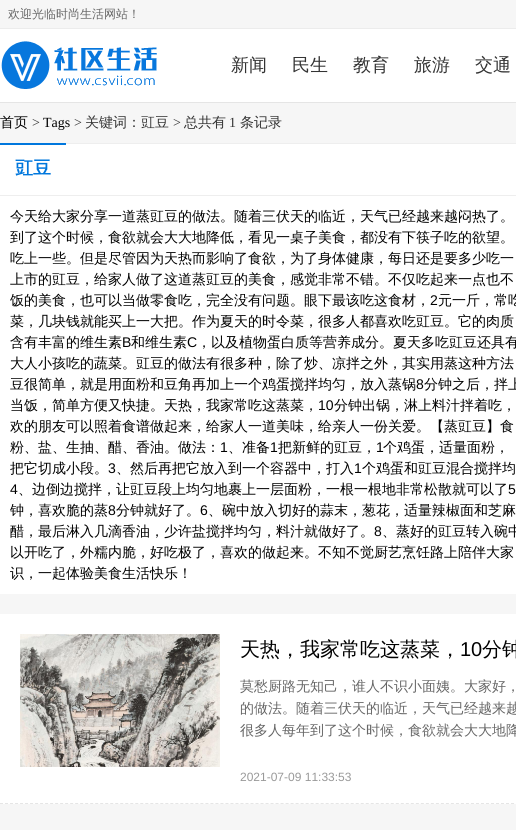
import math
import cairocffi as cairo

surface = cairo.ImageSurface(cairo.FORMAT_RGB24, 516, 830)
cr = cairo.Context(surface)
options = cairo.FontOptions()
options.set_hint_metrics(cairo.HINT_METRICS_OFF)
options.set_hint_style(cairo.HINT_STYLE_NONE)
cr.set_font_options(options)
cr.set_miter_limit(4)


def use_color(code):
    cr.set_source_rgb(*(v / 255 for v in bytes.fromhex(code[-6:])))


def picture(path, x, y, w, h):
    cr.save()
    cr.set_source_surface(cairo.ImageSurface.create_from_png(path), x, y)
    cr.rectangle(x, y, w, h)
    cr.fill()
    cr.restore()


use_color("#f6f6f6")
cr.paint()
use_color("#ececec")
cr.rectangle(0, 28, 516, 1)
cr.fill()
cr.select_font_face("WenQuanYi Zen Hei Medium")
cr.set_font_size(12)
use_color("#666666")
cr.move_to(8, 18)
cr.show_text("欢迎光临时尚生活网站！")
use_color("#ffffff")
cr.rectangle(0, 29, 516, 73)
cr.fill()
use_color("#e5e5e5")
cr.rectangle(0, 102, 516, 1)
cr.fill()
picture("img1.png", 1, 41, 156, 48)
cr.set_font_size(18)
use_color("#333333")
cr.move_to(231, 71)
cr.show_text("新闻")
cr.move_to(292, 71)
cr.show_text("民生")
cr.move_to(353, 71)
cr.show_text("教育")
cr.move_to(414, 71)
cr.show_text("旅游")
cr.move_to(475, 71)
cr.show_text("交通")
cr.set_font_size(14)
use_color("#000000")
cr.move_to(0, 127)
cr.show_text("首页")
cr.select_font_face("Liberation Serif")
use_color("#333333")
cr.move_to(32, 127)
cr.show_text(">")
use_color("#000000")
cr.move_to(43, 127)
cr.show_text("Tags")
use_color("#333333")
cr.move_to(74, 127)
cr.show_text(">")
cr.select_font_face("WenQuanYi Zen Hei Medium")
cr.move_to(85, 127)
cr.show_text("关键词：豇豆")
cr.select_font_face("Liberation Serif")
cr.move_to(173, 127)
cr.show_text(">")
cr.select_font_face("WenQuanYi Zen Hei Medium")
cr.move_to(184, 127)
cr.show_text("总共有")
cr.select_font_face("Liberation Serif")
cr.move_to(229, 127)
cr.show_text("1")
cr.select_font_face("WenQuanYi Zen Hei Medium")
cr.move_to(240, 127)
cr.show_text("条记录")
use_color("#ffffff")
cr.rectangle(0, 144, 516, 450)
cr.fill()
use_color("#eeeeee")
cr.rectangle(66, 143, 450, 1)
cr.fill()
use_color("#0077dd")
cr.rectangle(0, 143, 66, 2)
cr.fill()
cr.select_font_face("WenQuanYi Zen Hei", cairo.FONT_SLANT_NORMAL, cairo.FONT_WEIGHT_BOLD)
cr.set_font_size(18)
cr.move_to(15, 174)
cr.show_text("豇豆")
use_color("#eeeeee")
cr.rectangle(0, 195, 516, 1)
cr.fill()
cr.select_font_face("WenQuanYi Zen Hei Medium")
cr.set_font_size(14)
use_color("#000000")
cr.move_to(10, 221)
cr.show_text("今天给大家分享一道蒸豇豆的做法。随着三伏天的临近，天气已经越来越闷热了。")
cr.move_to(10, 242)
cr.show_text("到了这个时候，食欲就会大大地降低，看见一桌子美食，都没有下筷子吃的欲望。")
cr.move_to(10, 263)
cr.show_text("吃上一些。但是尽管因为天热而影响了食欲，为了身体健康，每日还是要多少吃一")
cr.move_to(10, 284)
cr.show_text("上市的豇豆，给家人做了这道蒸豇豆的美食，感觉非常不错。不仅吃起来一点也不")
cr.move_to(10, 305)
cr.show_text("饭的美食，也可以当做零食吃，完全没有问题。眼下最该吃这食材，")
cr.select_font_face("Liberation Sans")
cr.move_to(430, 305)
cr.show_text("2")
cr.select_font_face("WenQuanYi Zen Hei Medium")
cr.move_to(438, 305)
cr.show_text("元一斤，常吃")
cr.move_to(10, 326)
cr.show_text("菜，几块钱就能买上一大把。作为夏天的时令菜，很多人都喜欢吃豇豆。它的肉质")
cr.move_to(10, 347)
cr.show_text("含有丰富的维生素")
cr.select_font_face("Liberation Sans")
cr.move_to(122, 347)
cr.show_text("B")
cr.select_font_face("WenQuanYi Zen Hei Medium")
cr.move_to(131, 347)
cr.show_text("和维生素")
cr.select_font_face("Liberation Sans")
cr.move_to(187, 347)
cr.show_text("C")
cr.select_font_face("WenQuanYi Zen Hei Medium")
cr.move_to(197, 347)
cr.show_text("，以及植物蛋白质等营养成分。夏天多吃豇豆还具有")
cr.move_to(10, 368)
cr.show_text("大人小孩吃的蔬菜。豇豆的做法有很多种，除了炒、凉拌之外，其实用蒸这种方法")
cr.move_to(10, 389)
cr.show_text("豆很简单，就是用面粉和豆角再加上一个鸡蛋搅拌均匀，放入蒸锅")
cr.select_font_face("Liberation Sans")
cr.move_to(416, 389)
cr.show_text("8")
cr.select_font_face("WenQuanYi Zen Hei Medium")
cr.move_to(424, 389)
cr.show_text("分钟之后，拌上")
cr.move_to(10, 410)
cr.show_text("当饭，简单方便又快捷。天热，我家常吃这蒸菜，")
cr.select_font_face("Liberation Sans")
cr.move_to(318, 410)
cr.show_text("10")
cr.select_font_face("WenQuanYi Zen Hei Medium")
cr.move_to(334, 410)
cr.show_text("分钟出锅，淋上料汁拌着吃，")
cr.move_to(10, 431)
cr.show_text("欢的朋友可以照着食谱做起来，给家人一道美味，给亲人一份关爱。【蒸豇豆】食")
cr.move_to(10, 452)
cr.show_text("粉、盐、生抽、醋、香油。做法：")
cr.select_font_face("Liberation Sans")
cr.move_to(220, 452)
cr.show_text("1")
cr.select_font_face("WenQuanYi Zen Hei Medium")
cr.move_to(228, 452)
cr.show_text("、准备")
cr.select_font_face("Liberation Sans")
cr.move_to(270, 452)
cr.show_text("1")
cr.select_font_face("WenQuanYi Zen Hei Medium")
cr.move_to(278, 452)
cr.show_text("把新鲜的豇豆，")
cr.select_font_face("Liberation Sans")
cr.move_to(376, 452)
cr.show_text("1")
cr.select_font_face("WenQuanYi Zen Hei Medium")
cr.move_to(383, 452)
cr.show_text("个鸡蛋，适量面粉，")
cr.move_to(10, 473)
cr.show_text("把它切成小段。")
cr.select_font_face("Liberation Sans")
cr.move_to(108, 473)
cr.show_text("3")
cr.select_font_face("WenQuanYi Zen Hei Medium")
cr.move_to(116, 473)
cr.show_text("、然后再把它放入到一个容器中，打入")
cr.select_font_face("Liberation Sans")
cr.move_to(354, 473)
cr.show_text("1")
cr.select_font_face("WenQuanYi Zen Hei Medium")
cr.move_to(362, 473)
cr.show_text("个鸡蛋和豇豆混合搅拌均")
cr.select_font_face("Liberation Sans")
cr.move_to(10, 494)
cr.show_text("4")
cr.select_font_face("WenQuanYi Zen Hei Medium")
cr.move_to(18, 494)
cr.show_text("、边倒边搅拌，让豇豆段上均匀地裹上一层面粉，一根一根地非常松散就可以了")
cr.select_font_face("Liberation Sans")
cr.move_to(508, 494)
cr.show_text("5")
cr.select_font_face("WenQuanYi Zen Hei Medium")
cr.move_to(10, 515)
cr.show_text("钟，喜欢脆的蒸")
cr.select_font_face("Liberation Sans")
cr.move_to(108, 515)
cr.show_text("8")
cr.select_font_face("WenQuanYi Zen Hei Medium")
cr.move_to(116, 515)
cr.show_text("分钟就好了。")
cr.select_font_face("Liberation Sans")
cr.move_to(200, 515)
cr.show_text("6")
cr.select_font_face("WenQuanYi Zen Hei Medium")
cr.move_to(208, 515)
cr.show_text("、碗中放入切好的蒜末，葱花，适量辣椒面和芝麻")
cr.move_to(10, 536)
cr.show_text("醋，最后淋入几滴香油，少许盐搅拌均匀，料汁就做好了。")
cr.select_font_face("Liberation Sans")
cr.move_to(374, 536)
cr.show_text("8")
cr.select_font_face("WenQuanYi Zen Hei Medium")
cr.move_to(382, 536)
cr.show_text("、蒸好的豇豆转入碗中")
cr.move_to(10, 557)
cr.show_text("以开吃了，外糯内脆，好吃极了，喜欢的做起来。不知不觉厨艺烹饪路上陪伴大家")
cr.move_to(10, 578)
cr.show_text("识，一起体验美食生活快乐！")
use_color("#ffffff")
cr.rectangle(0, 614, 516, 190)
cr.fill()
cr.new_path()
cr.move_to(0, 803.5)
cr.line_to(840, 803.5)
use_color("#e5e5e5")
cr.set_line_width(1)
cr.set_dash([3, 2.01])
cr.stroke()
picture("img2.png", 20, 634, 200, 133)
cr.set_font_size(20)
use_color("#000000")
cr.move_to(240, 656)
cr.show_text("天热，我家常吃这蒸菜，")
cr.select_font_face("Liberation Sans")
cr.move_to(460, 656)
cr.show_text("10")
cr.select_font_face("WenQuanYi Zen Hei Medium")
cr.move_to(482, 656)
cr.show_text("分钟")
cr.set_font_size(14)
use_color("#666666")
cr.move_to(240, 691)
cr.show_text("莫愁厨路无知己，谁人不识小面姨。大家好，")
cr.move_to(240, 713)
cr.show_text("的做法。随着三伏天的临近，天气已经越来越")
cr.move_to(240, 735)
cr.show_text("很多人每年到了这个时候，食欲就会大大地降")
cr.select_font_face("Liberation Sans")
cr.set_font_size(12)
use_color("#999999")
cr.move_to(240, 781)
cr.show_text("2021-07-09 11:33:53")
surface.write_to_png("result.png")
